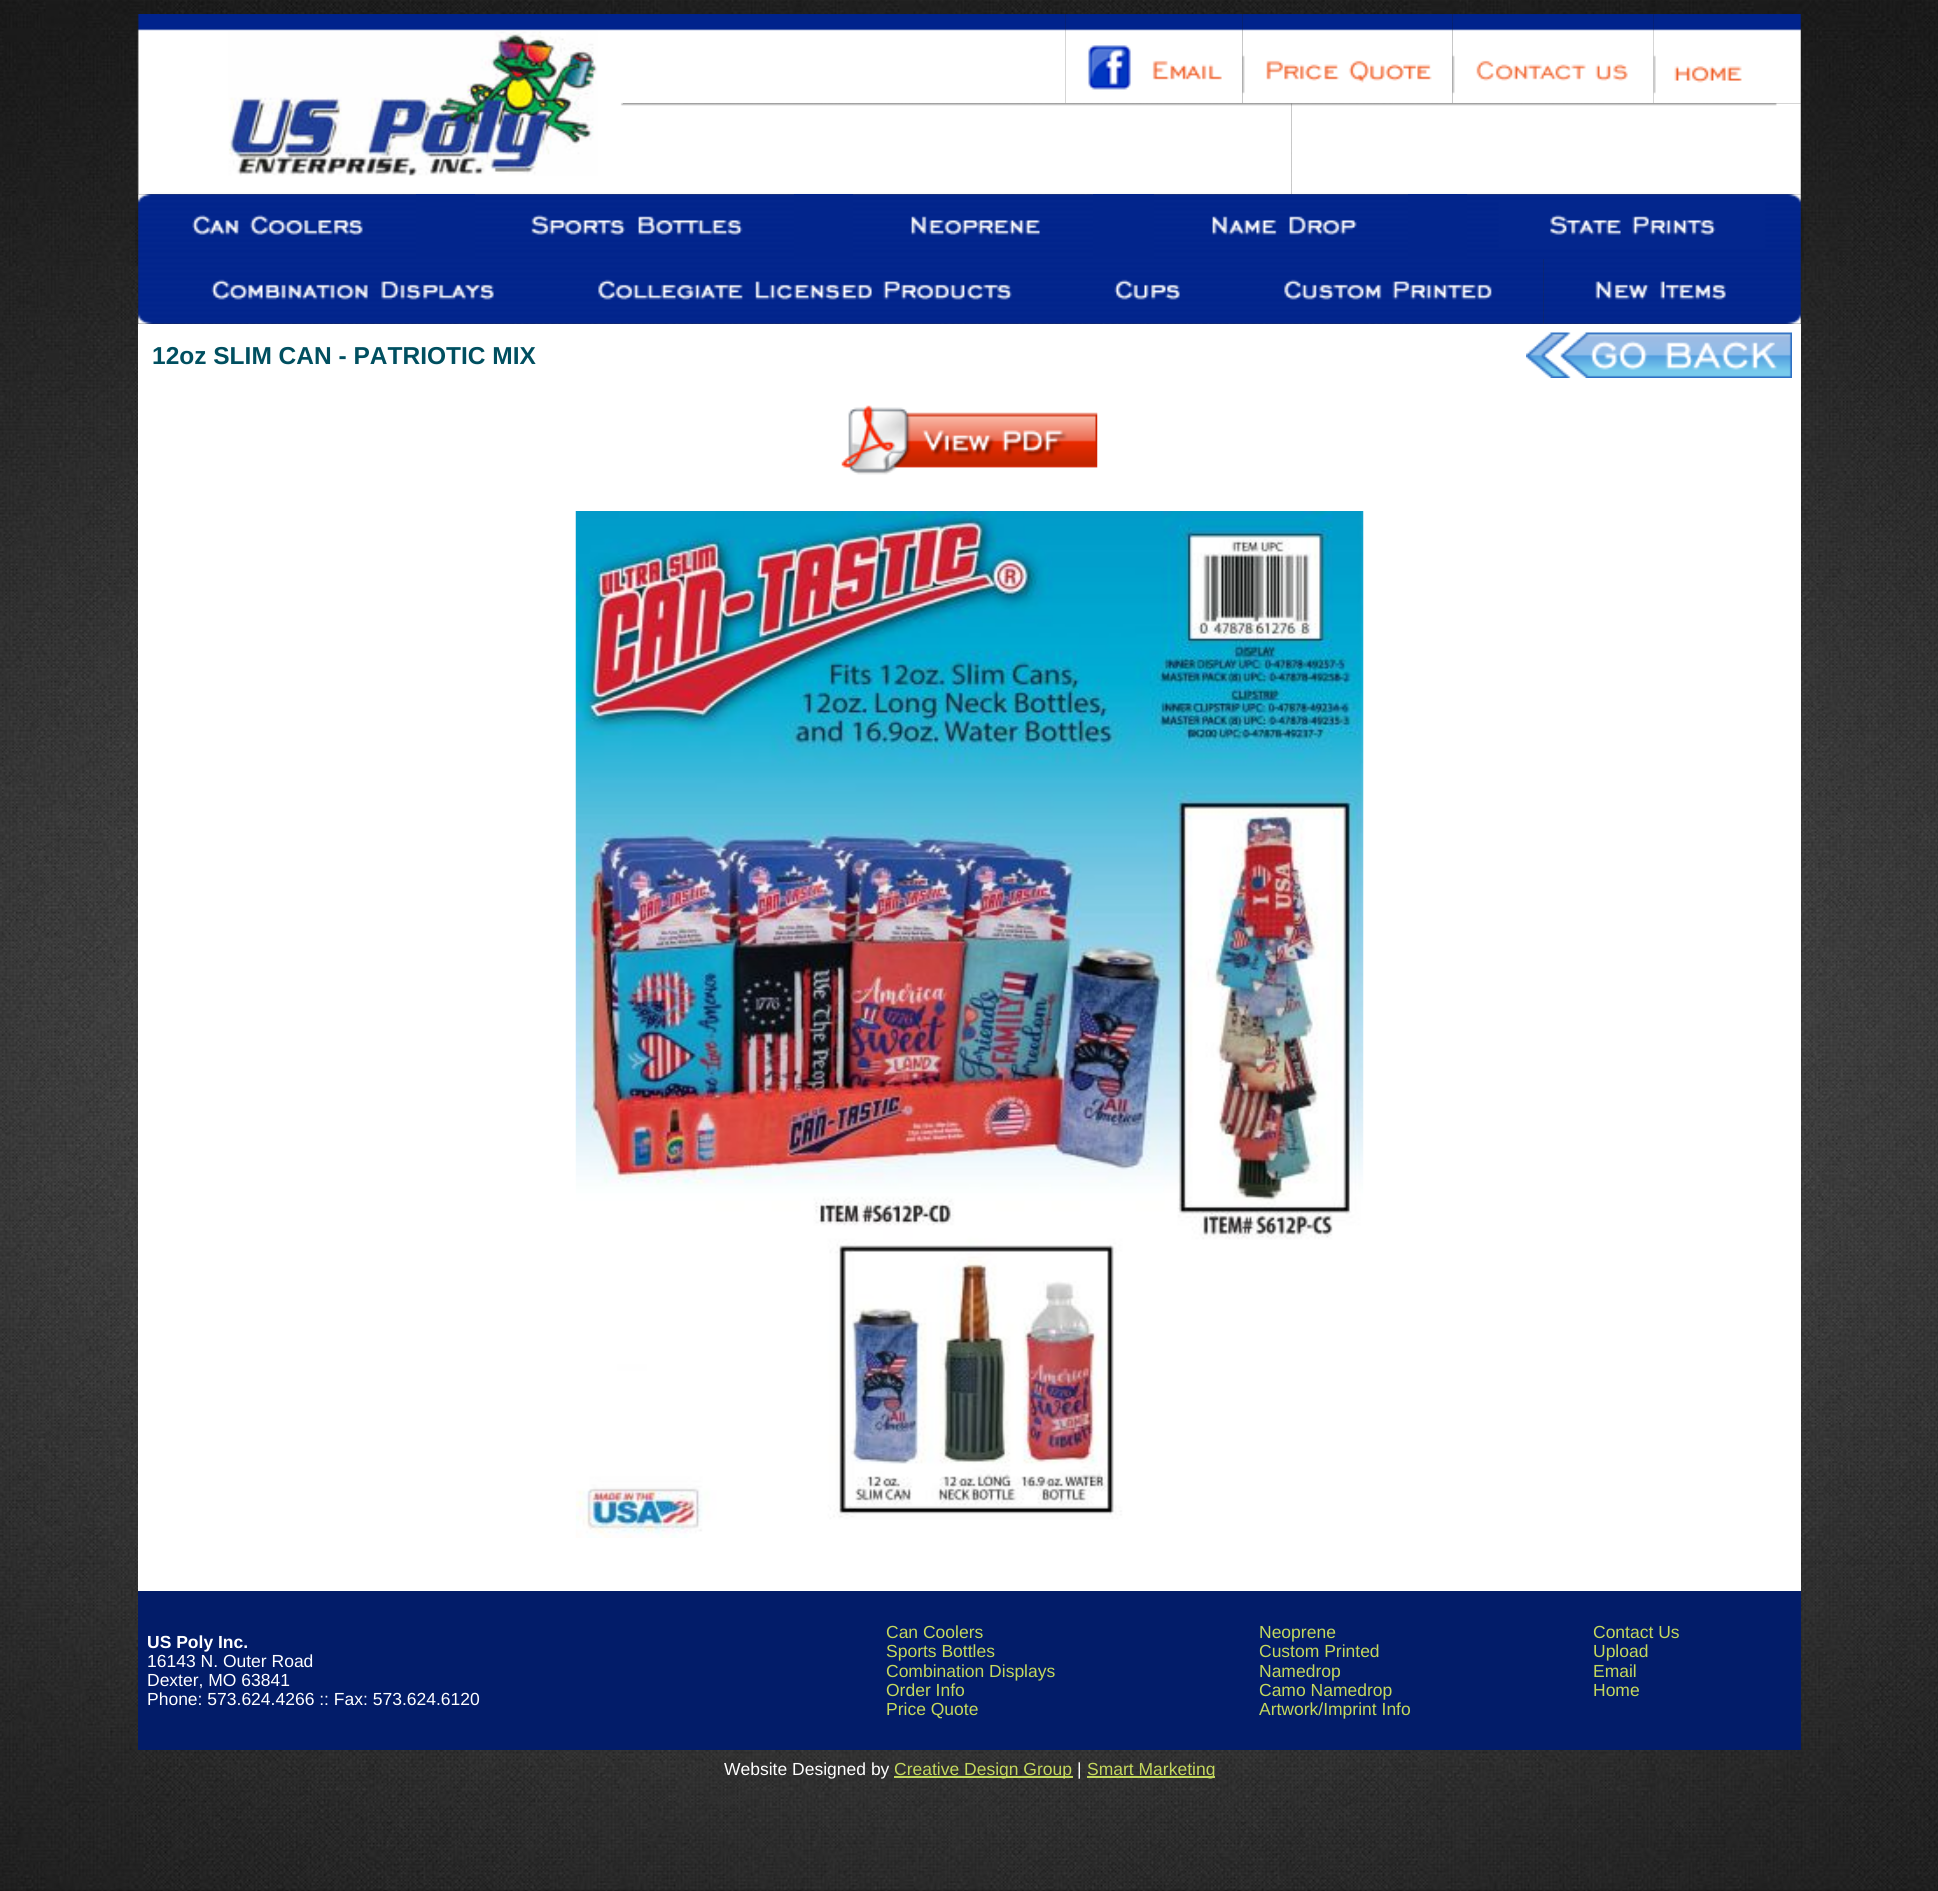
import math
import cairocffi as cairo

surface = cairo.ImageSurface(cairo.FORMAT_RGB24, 1938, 1891)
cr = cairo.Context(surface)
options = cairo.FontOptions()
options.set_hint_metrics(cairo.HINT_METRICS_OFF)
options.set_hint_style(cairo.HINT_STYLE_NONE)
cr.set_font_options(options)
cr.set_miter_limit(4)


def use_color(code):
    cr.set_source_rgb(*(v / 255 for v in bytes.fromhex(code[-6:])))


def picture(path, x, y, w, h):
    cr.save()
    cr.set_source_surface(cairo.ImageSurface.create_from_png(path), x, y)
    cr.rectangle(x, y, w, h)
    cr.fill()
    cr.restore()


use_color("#ffffff")
cr.paint()
picture("img1.png", 0, 0, 1938, 1891)
picture("img2.png", 137, 14, 486, 181)
picture("img3.png", 623, 14, 443, 90)
picture("img4.png", 1065, 14, 76, 90)
picture("img5.png", 1141, 14, 102, 90)
picture("img6.png", 1242, 14, 211, 90)
picture("img7.png", 1452, 14, 202, 90)
picture("img8.png", 1653, 14, 148, 90)
picture("img9.png", 623, 103, 669, 92)
picture("img10.png", 1291, 103, 510, 92)
picture("img11.png", 135, 210, 3, 56)
picture("img12.png", 138, 194, 278, 65)
use_color("#02258c")
cr.rectangle(416, 194, 59, 65)
cr.fill()
picture("img13.png", 475, 194, 319, 65)
cr.rectangle(794, 194, 59, 65)
cr.fill()
picture("img14.png", 853, 194, 240, 65)
cr.rectangle(1093, 194, 61, 65)
cr.fill()
picture("img15.png", 1154, 194, 254, 65)
cr.rectangle(1408, 194, 59, 65)
cr.fill()
picture("img16.png", 1467, 194, 334, 65)
picture("img17.png", 138, 259, 408, 65)
picture("img18.png", 546, 259, 518, 65)
picture("img19.png", 1064, 259, 168, 65)
picture("img20.png", 1232, 259, 312, 65)
picture("img21.png", 1543, 259, 258, 65)
picture("img22.png", 1801, 210, 3, 54)
use_color("#ffffff")
cr.rectangle(138, 324, 1663, 1267)
cr.fill()
cr.select_font_face("Liberation Sans", cairo.FONT_SLANT_NORMAL, cairo.FONT_WEIGHT_BOLD)
cr.set_font_size(24.5)
use_color("#004f60")
cr.move_to(152, 364)
cr.show_text("12oz SLIM CAN - PATRIOTIC MIX")
picture("img23.png", 1526, 332, 266, 46)
picture("img24.png", 841, 405, 257, 70)
picture("img25.png", 575, 511, 789, 1027)
use_color("#021c69")
cr.rectangle(138, 1591, 1663, 159)
cr.fill()
cr.set_font_size(17.5)
use_color("#ffffff")
cr.move_to(147, 1648)
cr.show_text("US Poly Inc.")
cr.select_font_face("Liberation Sans")
cr.move_to(147, 1667)
cr.show_text("16143 N. Outer Road")
cr.move_to(147, 1686)
cr.show_text("Dexter, MO 63841")
cr.move_to(147, 1705)
cr.show_text("Phone: 573.624.4266 :: Fax: 573.624.6120")
use_color("#c4d85d")
cr.move_to(886, 1638)
cr.show_text("Can Coolers")
cr.move_to(886, 1657)
cr.show_text("Sports Bottles")
cr.move_to(886, 1677)
cr.show_text("Combination Displays")
cr.move_to(886, 1696)
cr.show_text("Order Info")
cr.move_to(886, 1715)
cr.show_text("Price Quote")
cr.move_to(1259, 1638)
cr.show_text("Neoprene")
cr.move_to(1259, 1657)
cr.show_text("Custom Printed")
cr.move_to(1259, 1677)
cr.show_text("Namedrop")
cr.move_to(1259, 1696)
cr.show_text("Camo Namedrop")
cr.move_to(1259, 1715)
cr.show_text("Artwork/Imprint Info")
cr.move_to(1593, 1638)
cr.show_text("Contact Us")
cr.move_to(1593, 1657)
cr.show_text("Upload")
cr.move_to(1593, 1677)
cr.show_text("Email")
cr.move_to(1593, 1696)
cr.show_text("Home")
use_color("#ffffff")
cr.move_to(724, 1775)
cr.show_text("Website Designed by")
use_color("#c4d85d")
cr.rectangle(894, 1776, 179, 2)
cr.fill()
cr.move_to(894, 1775)
cr.show_text("Creative Design Group")
use_color("#ffffff")
cr.move_to(1077, 1775)
cr.show_text("|")
use_color("#c4d85d")
cr.rectangle(1087, 1776, 128, 2)
cr.fill()
cr.move_to(1087, 1775)
cr.show_text("Smart Marketing")
surface.write_to_png("result.png")
